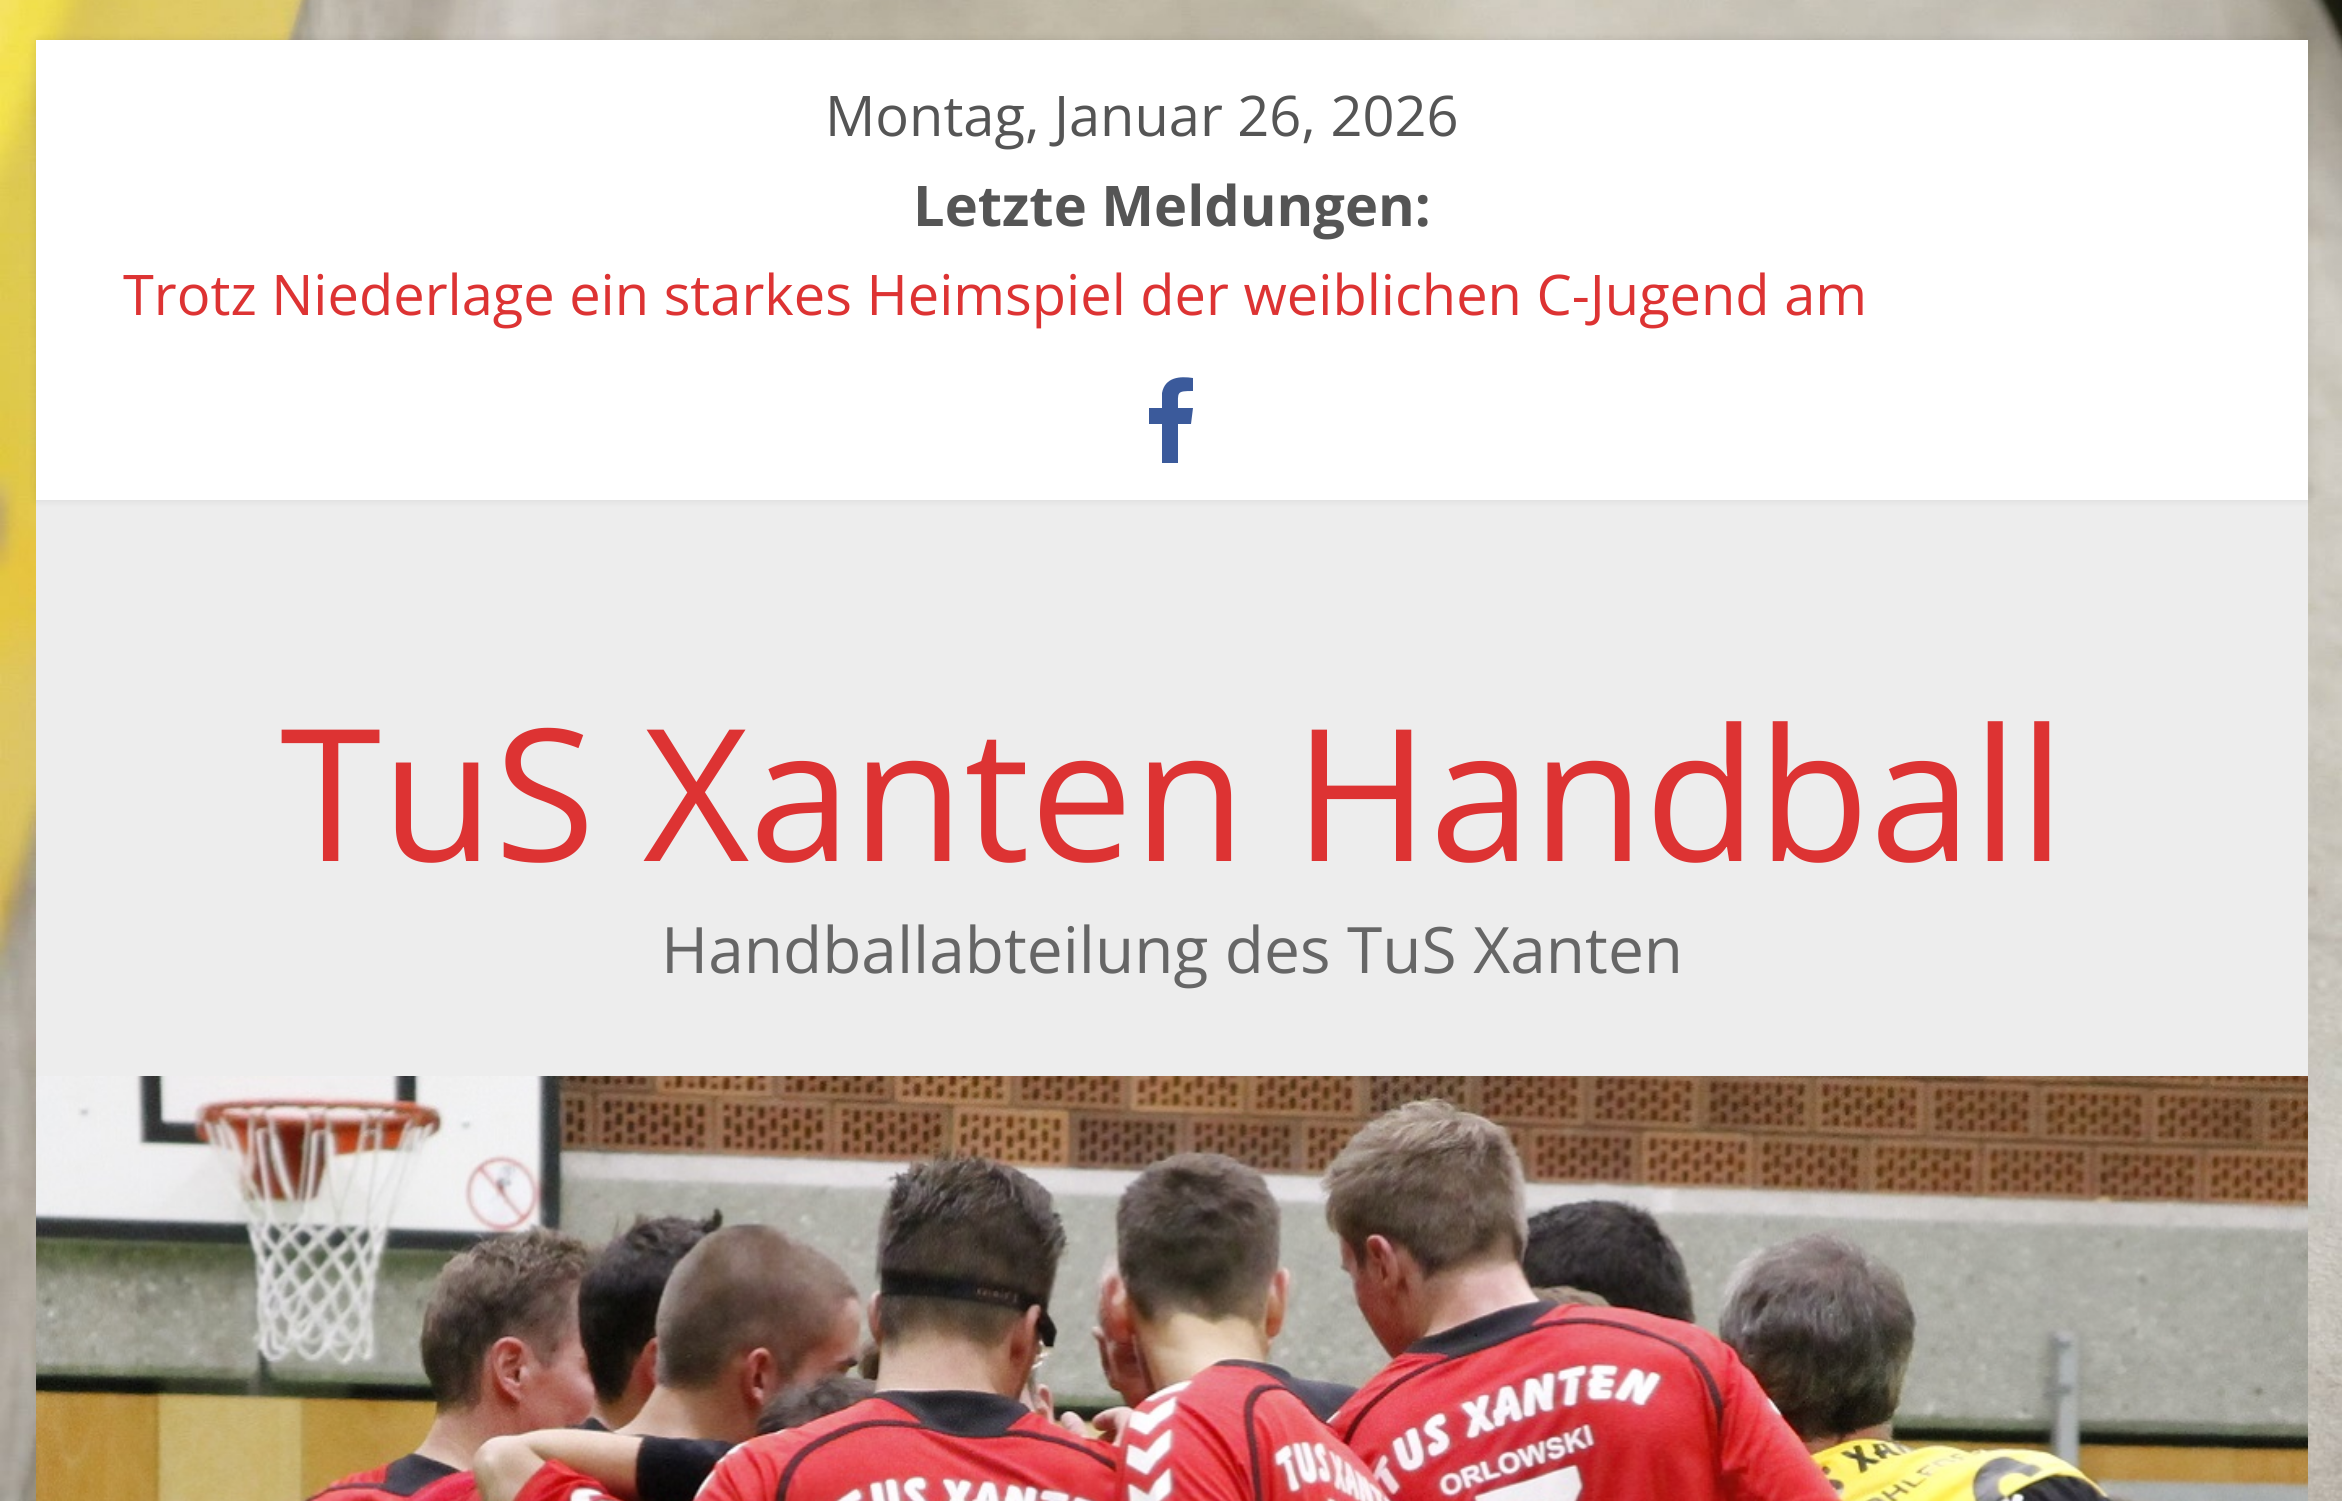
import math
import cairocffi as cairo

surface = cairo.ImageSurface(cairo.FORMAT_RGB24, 2342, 1501)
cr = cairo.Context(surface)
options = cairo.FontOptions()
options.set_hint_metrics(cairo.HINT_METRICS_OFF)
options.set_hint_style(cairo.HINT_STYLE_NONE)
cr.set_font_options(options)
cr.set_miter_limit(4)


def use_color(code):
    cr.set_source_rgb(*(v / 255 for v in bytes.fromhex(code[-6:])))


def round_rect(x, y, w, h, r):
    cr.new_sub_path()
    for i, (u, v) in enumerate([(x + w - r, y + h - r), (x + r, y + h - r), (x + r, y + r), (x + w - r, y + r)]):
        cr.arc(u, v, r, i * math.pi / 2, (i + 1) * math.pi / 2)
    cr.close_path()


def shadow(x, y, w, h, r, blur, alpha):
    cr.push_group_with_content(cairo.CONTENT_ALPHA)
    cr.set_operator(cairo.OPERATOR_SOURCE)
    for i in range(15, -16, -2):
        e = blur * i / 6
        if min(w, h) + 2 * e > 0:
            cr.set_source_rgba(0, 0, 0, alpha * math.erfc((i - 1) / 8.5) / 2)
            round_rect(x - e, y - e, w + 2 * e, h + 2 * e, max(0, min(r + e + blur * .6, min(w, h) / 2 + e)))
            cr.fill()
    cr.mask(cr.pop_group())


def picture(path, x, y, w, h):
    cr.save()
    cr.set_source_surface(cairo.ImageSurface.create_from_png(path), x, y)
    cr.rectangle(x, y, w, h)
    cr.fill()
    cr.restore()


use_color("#ffffff")
cr.paint()
picture("img1.png", 0, 0, 2342, 1501)
use_color("#ededed")
cr.rectangle(36, 500, 2272, 576)
cr.fill()
use_color("#000000")
shadow(36, 40, 2272, 460, 0, 4, 0.1)
use_color("#ffffff")
cr.rectangle(36, 40, 2272, 460)
cr.fill()
cr.select_font_face("Open Sans")
cr.set_font_size(56)
use_color("#555555")
cr.move_to(825, 136)
cr.show_text("Montag, Januar 26, 2026")
cr.select_font_face("Open Sans", cairo.FONT_SLANT_NORMAL, cairo.FONT_WEIGHT_BOLD)
cr.move_to(913, 226)
cr.show_text("Letzte Meldungen:")
cr.select_font_face("Open Sans")
use_color("#dd3333")
cr.move_to(123, 315)
cr.show_text("Trotz Niederlage ein starkes Heimspiel der weiblichen C-Jugend am")
use_color("#3b5a9b")
cr.new_path()
cr.move_to(1193, 378)
cr.line_to(1193, 391)
cr.curve_to(1176, 391, 1178, 392, 1178, 408)
cr.line_to(1193, 408)
cr.line_to(1191, 424)
cr.line_to(1178, 424)
cr.line_to(1178, 463)
cr.line_to(1162, 463)
cr.line_to(1162, 424)
cr.line_to(1149, 424)
cr.line_to(1149, 408)
cr.line_to(1162, 408)
cr.line_to(1162, 393)
cr.curve_to(1165, 377, 1180, 376, 1193, 378)
cr.close_path()
cr.fill()
cr.set_font_size(184)
use_color("#dd3333")
cr.move_to(280, 861)
cr.show_text("TuS Xanten Handball")
cr.set_font_size(64)
use_color("#666666")
cr.move_to(661, 973)
cr.show_text("Handballabteilung des TuS Xanten")
picture("img2.png", 36, 1076, 2272, 425)
surface.write_to_png("result.png")
